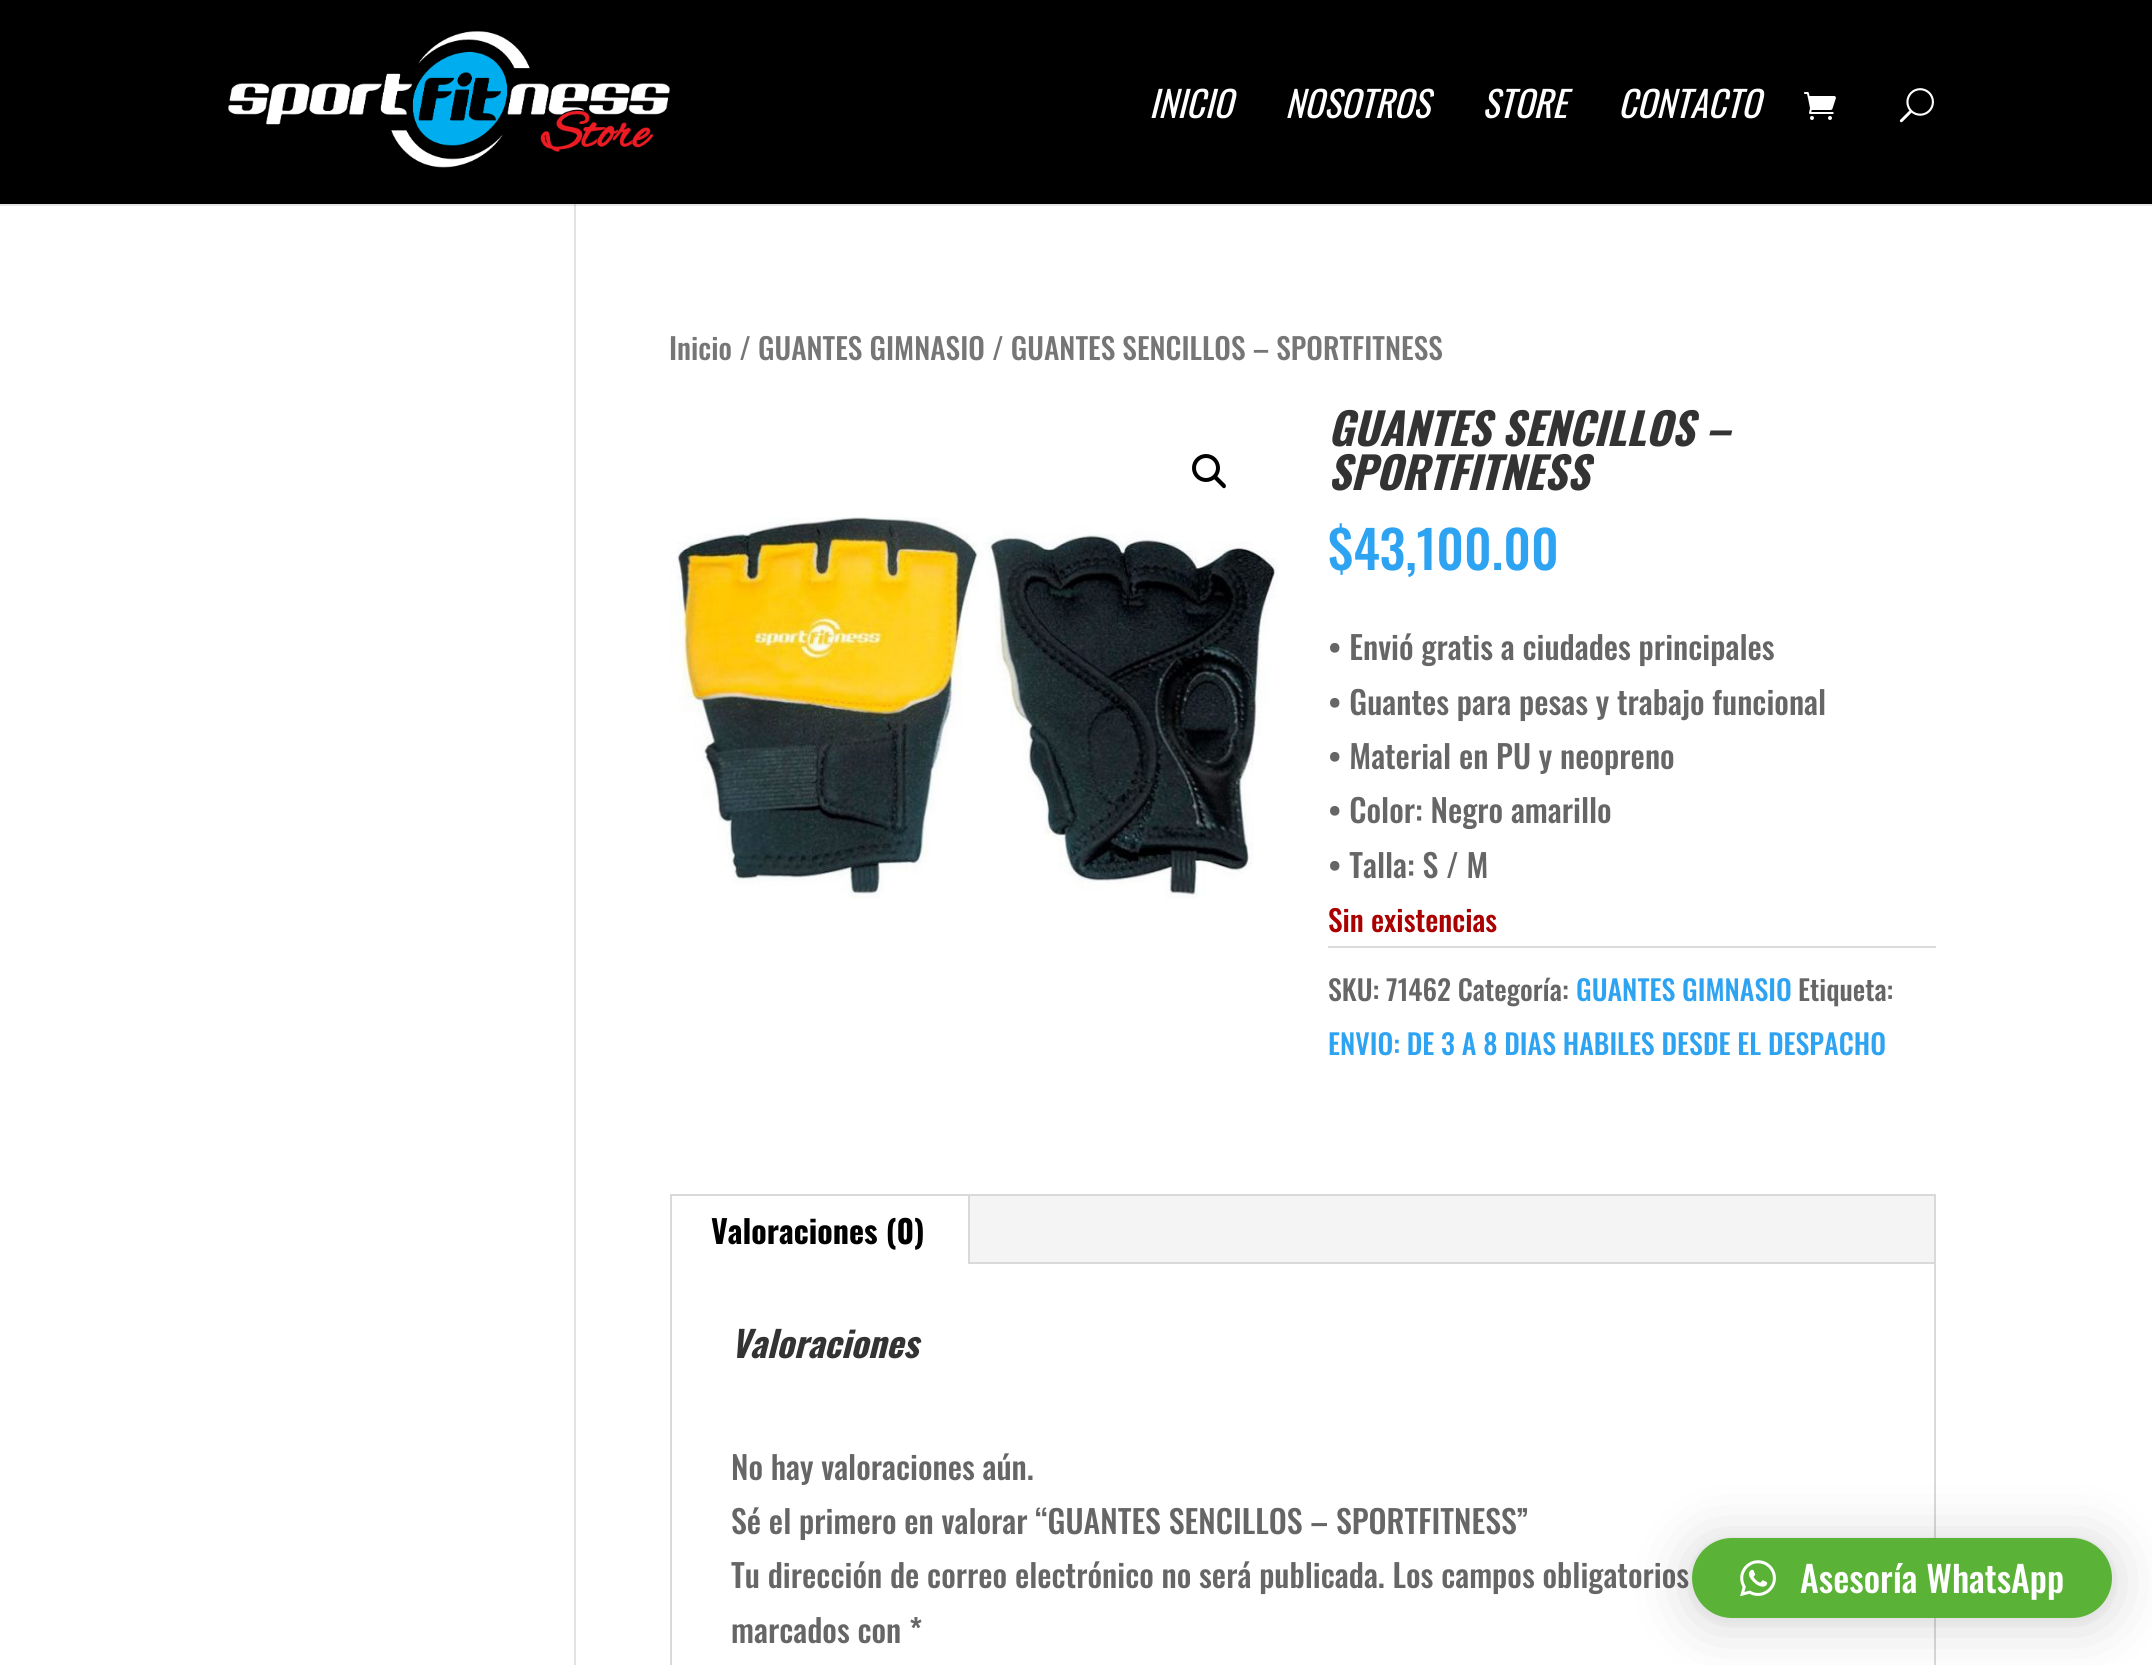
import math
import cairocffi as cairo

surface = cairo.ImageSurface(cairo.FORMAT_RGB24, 2152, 1665)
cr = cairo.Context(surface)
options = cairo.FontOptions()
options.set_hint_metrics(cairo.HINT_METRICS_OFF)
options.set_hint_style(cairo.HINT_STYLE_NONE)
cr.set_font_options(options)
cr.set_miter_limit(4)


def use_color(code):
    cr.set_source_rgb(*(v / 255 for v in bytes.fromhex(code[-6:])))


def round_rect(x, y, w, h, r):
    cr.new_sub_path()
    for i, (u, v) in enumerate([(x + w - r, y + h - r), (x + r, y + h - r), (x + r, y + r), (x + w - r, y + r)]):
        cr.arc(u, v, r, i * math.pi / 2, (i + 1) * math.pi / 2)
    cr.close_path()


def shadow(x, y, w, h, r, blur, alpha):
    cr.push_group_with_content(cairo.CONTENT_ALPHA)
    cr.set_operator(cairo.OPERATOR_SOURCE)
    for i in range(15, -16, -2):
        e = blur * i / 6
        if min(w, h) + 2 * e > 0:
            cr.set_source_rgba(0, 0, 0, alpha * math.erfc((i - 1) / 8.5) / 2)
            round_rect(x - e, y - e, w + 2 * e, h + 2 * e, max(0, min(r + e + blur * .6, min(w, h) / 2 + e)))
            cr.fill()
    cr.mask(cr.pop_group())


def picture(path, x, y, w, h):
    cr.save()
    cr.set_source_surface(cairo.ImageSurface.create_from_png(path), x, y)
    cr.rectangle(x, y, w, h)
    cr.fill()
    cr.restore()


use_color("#ffffff")
cr.paint()
use_color("#e2e2e2")
cr.rectangle(574, 204, 2, 1461)
cr.fill()
cr.set_source_rgba(0, 0, 0, 0.1)
cr.rectangle(0, 204, 2152, 2)
cr.fill()
use_color("#000000")
cr.rectangle(0, 0, 2152, 204)
cr.fill()
picture("img1.png", 228, 31, 442, 137)
cr.select_font_face("Oswald", cairo.FONT_SLANT_ITALIC)
cr.set_font_size(36)
use_color("#ffffff")
cr.move_to(1149, 118)
cr.show_text("INICIO")
cr.move_to(1285, 118)
cr.show_text("NOSOTROS")
cr.move_to(1482, 118)
cr.show_text("STORE")
cr.move_to(1618, 118)
cr.show_text("CONTACTO")
picture("img2.png", 1804, 92, 32, 28)
picture("img3.png", 1899, 88, 35, 35)
cr.select_font_face("Oswald Medium")
cr.set_font_size(29.45)
use_color("#767676")
cr.move_to(669, 360)
cr.show_text("Inicio / GUANTES GIMNASIO / GUANTES SENCILLOS – SPORTFITNESS")
cr.new_path()
cr.arc(1206, 468, 12, 0, 2 * math.pi)
use_color("#000000")
cr.set_line_width(4)
cr.stroke()
cr.new_path()
cr.move_to(1214, 476)
cr.curve_to(1215, 475.5, 1216, 475.5, 1217, 476)
cr.line_to(1225.5, 484.5)
cr.curve_to(1226, 485.5, 1226, 486.5, 1225.5, 487.5)
cr.curve_to(1224.5, 488.5, 1223.5, 488.5, 1222.5, 487.5)
cr.line_to(1214, 479)
cr.curve_to(1213, 478, 1213, 477, 1214, 476)
cr.close_path()
cr.fill()
picture("img4.png", 670, 517, 608, 382)
cr.select_font_face("Oswald", cairo.FONT_SLANT_ITALIC, cairo.FONT_WEIGHT_BOLD)
cr.set_font_size(44)
use_color("#333333")
cr.move_to(1328, 446)
cr.show_text("GUANTES SENCILLOS –")
cr.move_to(1328, 490)
cr.show_text("SPORTFITNESS")
cr.select_font_face("Oswald Medium")
cr.set_font_size(52)
use_color("#2ea3f2")
cr.move_to(1328, 570)
cr.show_text("$43,100.00")
cr.set_font_size(32)
use_color("#666666")
cr.move_to(1328, 660)
cr.show_text("• Envió gratis a ciudades principales")
cr.move_to(1328, 715)
cr.show_text("• Guantes para pesas y trabajo funcional")
cr.move_to(1328, 769)
cr.show_text("• Material en PU y neopreno")
cr.move_to(1328, 823)
cr.show_text("• Color: Negro amarillo")
cr.move_to(1328, 878)
cr.show_text("• Talla: S / M")
cr.set_font_size(29.45)
use_color("#aa0000")
cr.move_to(1328, 932)
cr.show_text("Sin existencias")
use_color("#dadada")
cr.rectangle(1328, 946, 608, 2)
cr.fill()
cr.set_font_size(28)
use_color("#666666")
cr.move_to(1328, 1001)
cr.show_text("SKU: 71462 Categoría:")
use_color("#2ea3f2")
cr.move_to(1576, 1001)
cr.show_text("GUANTES GIMNASIO")
use_color("#666666")
cr.move_to(1798, 1001)
cr.show_text("Etiqueta:")
use_color("#2ea3f2")
cr.move_to(1328, 1055)
cr.show_text("ENVIO: DE 3 A 8 DIAS HABILES DESDE EL DESPACHO")
cr.rectangle(671, 1195, 1264, 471)
use_color("#d9d9d9")
cr.set_line_width(2)
cr.stroke()
use_color("#f4f4f4")
cr.rectangle(970, 1196, 964, 66)
cr.fill()
use_color("#d9d9d9")
cr.rectangle(968, 1196, 2, 68)
cr.fill()
cr.select_font_face("Oswald", cairo.FONT_SLANT_NORMAL, cairo.FONT_WEIGHT_BOLD)
cr.set_font_size(32)
use_color("#000000")
cr.move_to(711, 1244)
cr.show_text("Valoraciones (0)")
use_color("#d9d9d9")
cr.rectangle(970, 1262, 964, 2)
cr.fill()
cr.select_font_face("Oswald", cairo.FONT_SLANT_ITALIC, cairo.FONT_WEIGHT_BOLD)
cr.set_font_size(36)
use_color("#333333")
cr.move_to(731, 1358)
cr.show_text("Valoraciones")
cr.select_font_face("Oswald Medium")
cr.set_font_size(32)
use_color("#666666")
cr.move_to(731, 1480)
cr.show_text("No hay valoraciones aún.")
cr.move_to(731, 1534)
cr.show_text("Sé el primero en valorar “GUANTES SENCILLOS – SPORTFITNESS”")
cr.move_to(731, 1588)
cr.show_text("Tu dirección de correo electrónico no será publicada. Los campos obligatorios")
cr.move_to(731, 1643)
cr.show_text("marcados con *")
use_color("#000000")
shadow(1692, 1542, 420, 80, 40, 32, 0.16)
shadow(1692, 1540, 420, 80, 40, 6, 0.06)
use_color("#5ab237")
round_rect(1692, 1538, 420, 80, 40)
cr.fill()
picture("img5.png", 1740, 1560, 36, 37)
cr.set_font_size(36)
use_color("#ffffff")
cr.move_to(1800, 1593)
cr.show_text("Asesoría WhatsApp")
surface.write_to_png("result.png")
